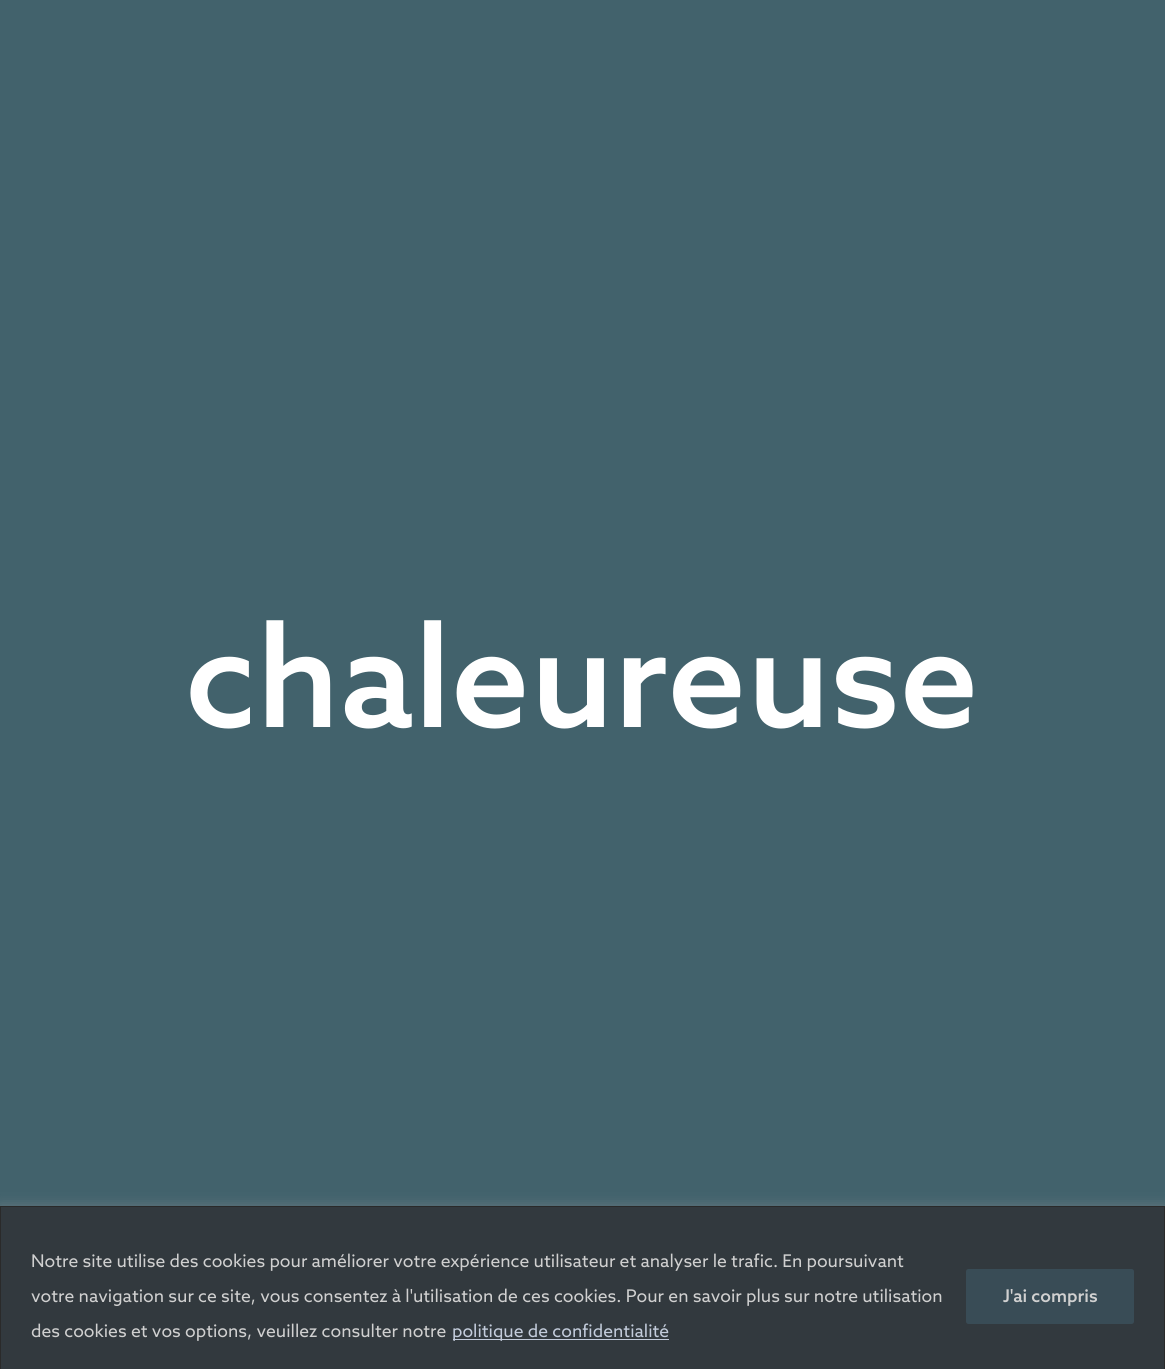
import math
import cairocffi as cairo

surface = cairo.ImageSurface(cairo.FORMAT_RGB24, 1165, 1369)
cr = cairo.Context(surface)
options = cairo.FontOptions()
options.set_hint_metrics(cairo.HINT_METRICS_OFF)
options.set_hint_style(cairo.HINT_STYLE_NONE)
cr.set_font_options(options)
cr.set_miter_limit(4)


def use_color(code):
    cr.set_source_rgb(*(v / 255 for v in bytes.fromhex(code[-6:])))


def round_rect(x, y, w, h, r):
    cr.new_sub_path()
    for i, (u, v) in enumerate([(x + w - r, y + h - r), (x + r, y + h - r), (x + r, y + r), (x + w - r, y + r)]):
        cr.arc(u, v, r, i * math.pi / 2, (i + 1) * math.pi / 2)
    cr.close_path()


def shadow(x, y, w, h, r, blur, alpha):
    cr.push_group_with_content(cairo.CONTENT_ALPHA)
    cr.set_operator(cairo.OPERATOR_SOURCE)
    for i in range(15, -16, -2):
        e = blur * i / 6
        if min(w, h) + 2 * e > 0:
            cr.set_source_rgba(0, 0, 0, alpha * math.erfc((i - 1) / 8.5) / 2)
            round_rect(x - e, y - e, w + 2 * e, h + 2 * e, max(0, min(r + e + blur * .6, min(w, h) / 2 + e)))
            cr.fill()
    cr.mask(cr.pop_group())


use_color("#42626c")
cr.paint()
cr.select_font_face("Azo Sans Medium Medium")
cr.set_font_size(139.75)
use_color("#ffffff")
cr.move_to(185, 727)
cr.show_text("chaleureuse")
use_color("#acabab")
shadow(0, 1205, 1165, 164, 0, 6, 0.3)
use_color("#32393e")
cr.rectangle(0.5, 1206.5, 1164, 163)
cr.fill_preserve()
use_color("#2a2a2a")
cr.set_line_width(1)
cr.stroke()
cr.select_font_face("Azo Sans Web")
cr.set_font_size(17.5)
use_color("#d0d0d0")
cr.move_to(31, 1267)
cr.show_text("Notre site utilise des cookies pour améliorer votre expérience utilisateur et analyser le trafic. En poursuivant")
cr.move_to(31, 1302)
cr.show_text("votre navigation sur ce site, vous consentez à l'utilisation de ces cookies. Pour en savoir plus sur notre utilisation")
cr.move_to(31, 1337)
cr.show_text("des cookies et vos options, veuillez consulter notre")
use_color("#c3ccdb")
cr.rectangle(453, 1339, 216, 1)
cr.fill()
cr.move_to(452, 1337)
cr.show_text("politique de confidentialité")
use_color("#394c56")
round_rect(967.5, 1270.5, 165, 52, 1)
cr.fill_preserve()
cr.set_line_width(3)
cr.stroke()
cr.select_font_face("Azo Sans Medium Medium")
use_color("#d0d0d0")
cr.move_to(1003, 1302)
cr.show_text("J'ai compris")
surface.write_to_png("result.png")
